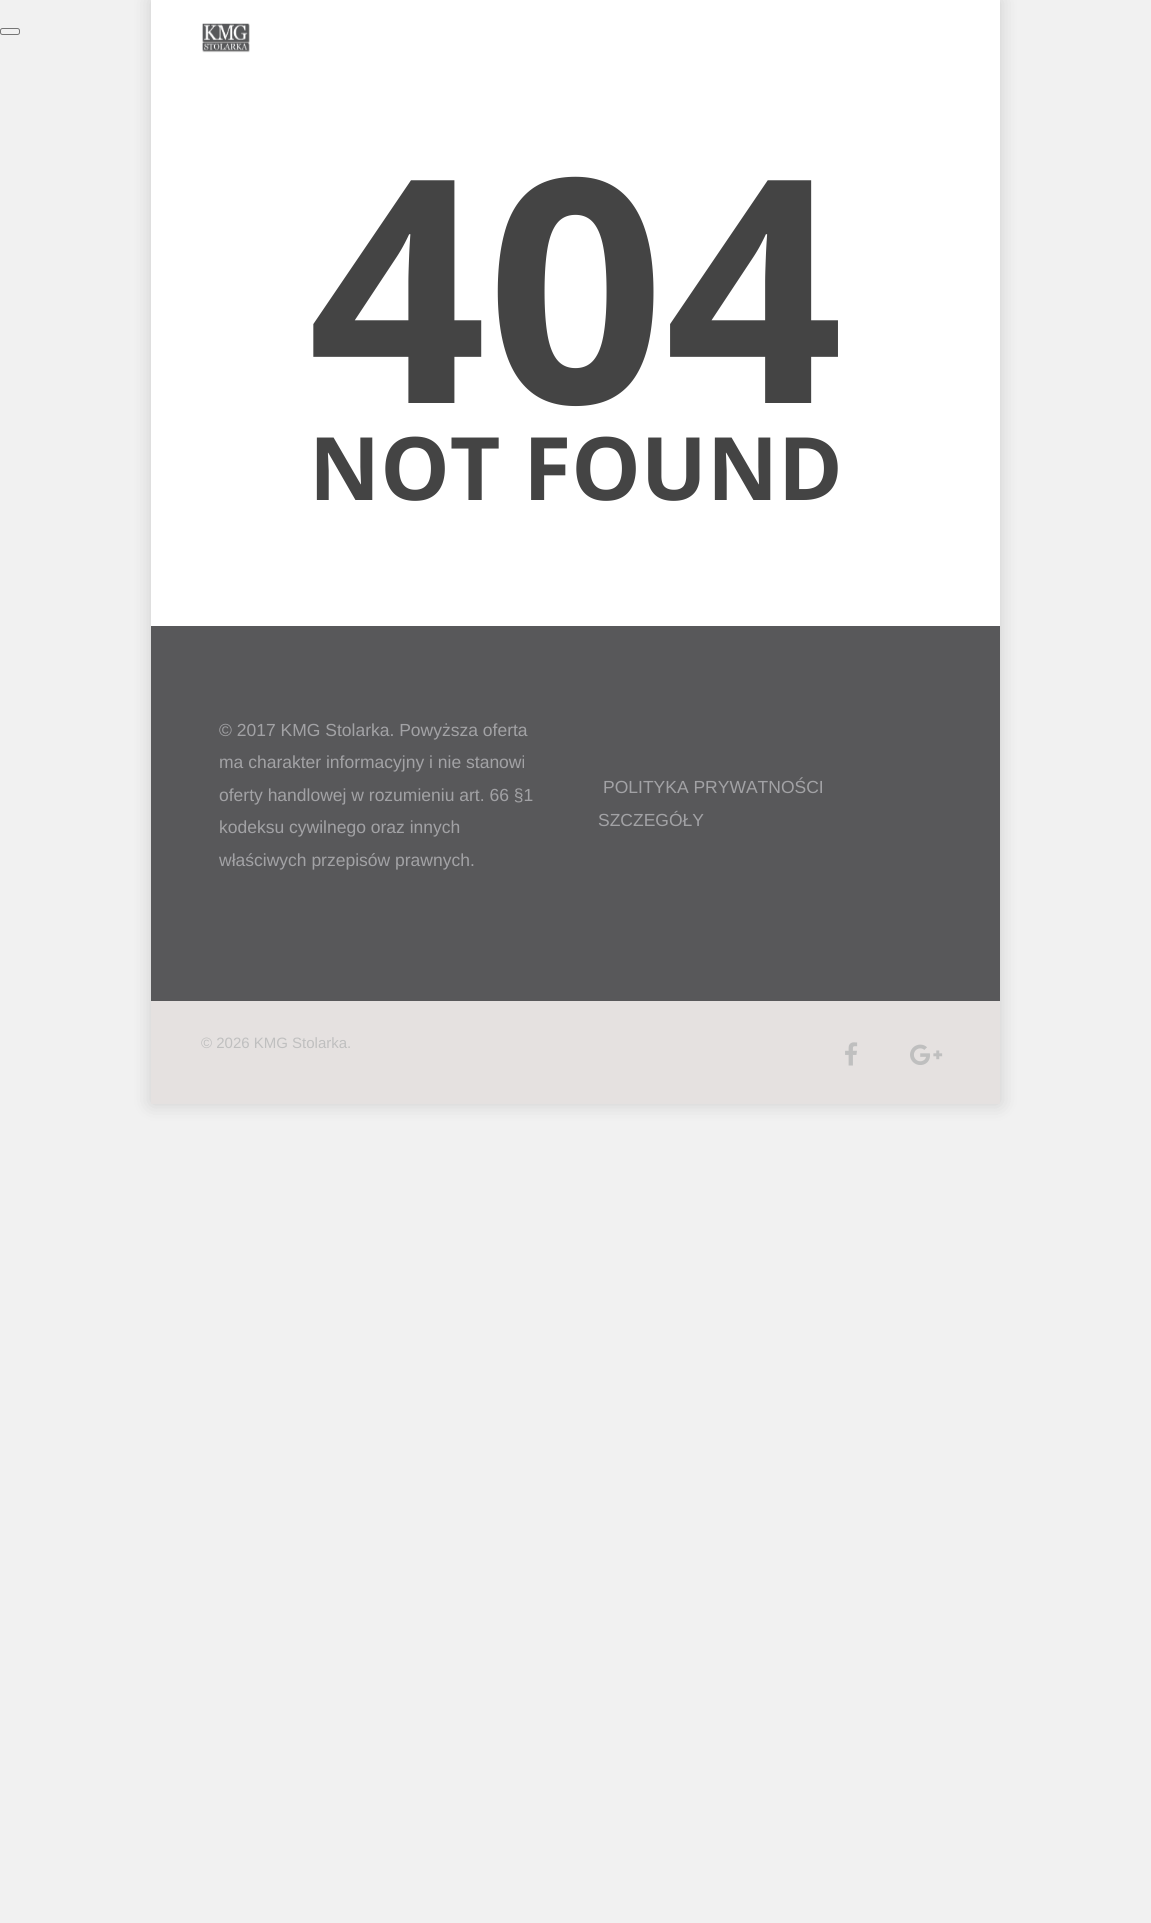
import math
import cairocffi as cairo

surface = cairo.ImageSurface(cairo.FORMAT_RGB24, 1151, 1923)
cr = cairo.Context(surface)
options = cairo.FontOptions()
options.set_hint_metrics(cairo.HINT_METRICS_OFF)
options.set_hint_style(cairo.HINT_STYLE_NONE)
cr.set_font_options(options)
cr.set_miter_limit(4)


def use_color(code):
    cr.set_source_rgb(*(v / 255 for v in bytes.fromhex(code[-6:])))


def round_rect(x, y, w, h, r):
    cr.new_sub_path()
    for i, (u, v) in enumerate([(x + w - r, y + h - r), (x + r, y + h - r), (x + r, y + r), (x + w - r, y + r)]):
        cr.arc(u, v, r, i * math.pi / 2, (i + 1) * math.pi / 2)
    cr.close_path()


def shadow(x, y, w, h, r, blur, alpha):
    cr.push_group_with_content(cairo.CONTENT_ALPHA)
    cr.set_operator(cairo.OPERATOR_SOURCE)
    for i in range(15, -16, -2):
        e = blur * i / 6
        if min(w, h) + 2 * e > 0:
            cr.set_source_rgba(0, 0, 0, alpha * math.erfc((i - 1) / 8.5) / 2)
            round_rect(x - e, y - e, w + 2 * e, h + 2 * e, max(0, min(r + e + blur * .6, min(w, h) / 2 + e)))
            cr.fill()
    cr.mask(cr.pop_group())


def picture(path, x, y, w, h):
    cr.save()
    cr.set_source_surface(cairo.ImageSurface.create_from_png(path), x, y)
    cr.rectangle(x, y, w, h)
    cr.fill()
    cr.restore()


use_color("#f1f1f1")
cr.paint()
round_rect(0.5, 28.5, 19, 6, 2)
use_color("#767676")
cr.set_line_width(1)
cr.stroke()
use_color("#000000")
shadow(151, 0, 849, 1104, 0, 9.5, 0.15)
use_color("#ffffff")
cr.rectangle(151, 0, 849, 626)
cr.fill()
picture("img1.png", 202, 23, 48, 30)
cr.select_font_face("Open Sans", cairo.FONT_SLANT_NORMAL, cairo.FONT_WEIGHT_BOLD)
cr.set_font_size(312)
use_color("#444444")
cr.move_to(308, 403)
cr.show_text("404")
cr.set_font_size(87.5)
cr.move_to(309, 500)
cr.show_text("NOT FOUND")
use_color("#58585a")
cr.rectangle(151, 626, 849, 375)
cr.fill()
cr.select_font_face("Liberation Sans")
cr.set_font_size(17.5)
use_color("#a2a2a5")
cr.move_to(219, 736)
cr.show_text("© 2017 KMG Stolarka. Powyższa oferta")
cr.move_to(219, 768)
cr.show_text("ma charakter informacyjny i nie stanowi")
cr.move_to(219, 801)
cr.show_text("oferty handlowej w rozumieniu art. 66 §1")
cr.move_to(219, 833)
cr.show_text("kodeksu cywilnego oraz innych")
cr.move_to(219, 866)
cr.show_text("właściwych przepisów prawnych.")
cr.move_to(603, 793)
cr.show_text("POLITYKA PRYWATNOŚCI")
cr.move_to(598, 826)
cr.show_text("SZCZEGÓŁY")
use_color("#e5e1e0")
cr.rectangle(151, 1001, 849, 103)
cr.fill()
cr.set_font_size(15)
use_color("#bfbfbf")
cr.move_to(201, 1048)
cr.show_text("© 2026 KMG Stolarka.")
picture("img2.png", 845, 1042, 13, 24)
picture("img3.png", 910, 1044, 33, 21)
surface.write_to_png("result.png")
